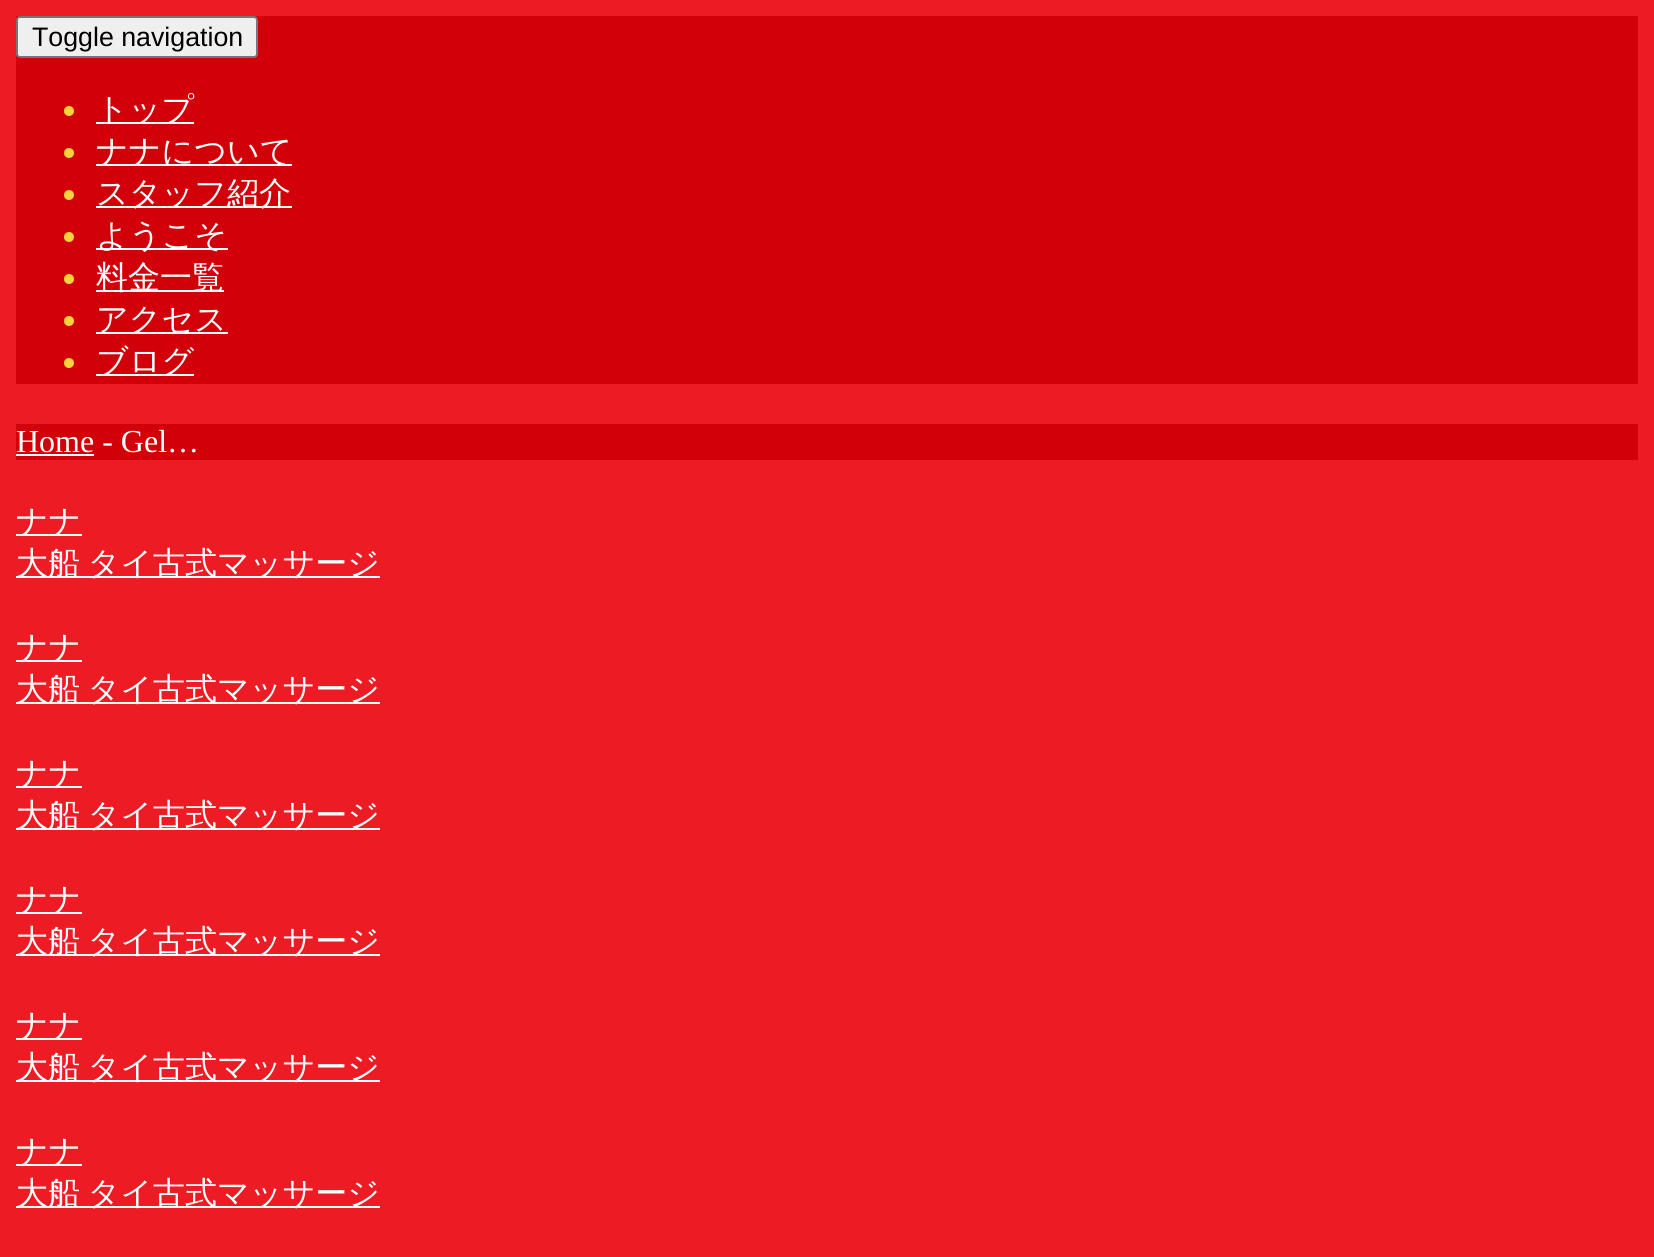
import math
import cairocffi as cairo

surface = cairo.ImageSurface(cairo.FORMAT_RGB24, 1654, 1257)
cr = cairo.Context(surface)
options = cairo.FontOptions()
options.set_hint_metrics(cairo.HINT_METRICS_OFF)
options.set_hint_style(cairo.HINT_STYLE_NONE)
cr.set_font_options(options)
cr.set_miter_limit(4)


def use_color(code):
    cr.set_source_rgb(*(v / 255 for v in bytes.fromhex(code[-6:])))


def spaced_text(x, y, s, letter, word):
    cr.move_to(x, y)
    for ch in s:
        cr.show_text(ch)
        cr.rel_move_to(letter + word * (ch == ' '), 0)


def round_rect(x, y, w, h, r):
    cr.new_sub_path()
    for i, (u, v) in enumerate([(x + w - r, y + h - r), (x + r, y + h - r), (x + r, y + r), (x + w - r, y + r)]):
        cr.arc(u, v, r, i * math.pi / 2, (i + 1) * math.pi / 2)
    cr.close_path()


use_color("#ed1b23")
cr.paint()
use_color("#d20008")
cr.rectangle(16, 16, 1622, 368)
cr.fill()
use_color("#efefef")
round_rect(17, 17, 240, 40, 3)
cr.fill_preserve()
use_color("#767676")
cr.stroke()
cr.select_font_face("Liberation Sans")
cr.set_font_size(26.75)
use_color("#000000")
cr.move_to(32, 46)
cr.show_text("Toggle navigation")
use_color("#f8d13c")
cr.new_path()
cr.arc(69, 111, 5, 0, 2 * math.pi)
cr.fill()
use_color("#ffffff")
cr.rectangle(96, 122, 98, 2)
cr.fill()
cr.select_font_face("WenQuanYi Zen Hei Medium")
cr.set_font_size(32)
cr.move_to(96, 120)
cr.show_text("トップ")
use_color("#f8d13c")
cr.new_path()
cr.arc(69, 153, 5, 0, 2 * math.pi)
cr.fill()
use_color("#ffffff")
cr.rectangle(96, 164, 196, 2)
cr.fill()
cr.move_to(96, 162)
cr.show_text("ナナについて")
use_color("#f8d13c")
cr.new_path()
cr.arc(69, 195, 5, 0, 2 * math.pi)
cr.fill()
use_color("#ffffff")
cr.rectangle(96, 206, 196, 2)
cr.fill()
cr.move_to(96, 204)
cr.show_text("スタッフ紹介")
use_color("#f8d13c")
cr.new_path()
cr.arc(69, 237, 5, 0, 2 * math.pi)
cr.fill()
use_color("#ffffff")
cr.rectangle(96, 248, 132, 2)
cr.fill()
cr.move_to(96, 246)
cr.show_text("ようこそ")
use_color("#f8d13c")
cr.new_path()
cr.arc(69, 279, 5, 0, 2 * math.pi)
cr.fill()
use_color("#ffffff")
cr.rectangle(96, 290, 128, 2)
cr.fill()
cr.move_to(96, 288)
cr.show_text("料金一覧")
use_color("#f8d13c")
cr.new_path()
cr.arc(69, 321, 5, 0, 2 * math.pi)
cr.fill()
use_color("#ffffff")
cr.rectangle(96, 332, 132, 2)
cr.fill()
cr.move_to(96, 330)
cr.show_text("アクセス")
use_color("#f8d13c")
cr.new_path()
cr.arc(69, 363, 5, 0, 2 * math.pi)
cr.fill()
use_color("#ffffff")
cr.rectangle(96, 374, 98, 2)
cr.fill()
cr.move_to(96, 372)
cr.show_text("ブログ")
use_color("#d20008")
cr.rectangle(16, 424, 1622, 36)
cr.fill()
cr.select_font_face("Liberation Serif")
use_color("#ffffff")
cr.move_to(16, 452)
cr.show_text("Home - Gel…")
cr.rectangle(16, 454, 78, 2)
cr.fill()
cr.rectangle(16, 534, 66, 2)
cr.fill()
cr.select_font_face("WenQuanYi Zen Hei Medium")
cr.move_to(16, 532)
cr.show_text("ナナ")
cr.rectangle(16, 576, 364, 2)
cr.fill()
spaced_text(16, 574, "大船 タイ古式マッサージ", 0, -2)
cr.rectangle(16, 660, 66, 2)
cr.fill()
cr.move_to(16, 658)
cr.show_text("ナナ")
cr.rectangle(16, 702, 364, 2)
cr.fill()
spaced_text(16, 700, "大船 タイ古式マッサージ", 0, -2)
cr.rectangle(16, 786, 66, 2)
cr.fill()
cr.move_to(16, 784)
cr.show_text("ナナ")
cr.rectangle(16, 828, 364, 2)
cr.fill()
spaced_text(16, 826, "大船 タイ古式マッサージ", 0, -2)
cr.rectangle(16, 912, 66, 2)
cr.fill()
cr.move_to(16, 910)
cr.show_text("ナナ")
cr.rectangle(16, 954, 364, 2)
cr.fill()
spaced_text(16, 952, "大船 タイ古式マッサージ", 0, -2)
cr.rectangle(16, 1038, 66, 2)
cr.fill()
cr.move_to(16, 1036)
cr.show_text("ナナ")
cr.rectangle(16, 1080, 364, 2)
cr.fill()
spaced_text(16, 1078, "大船 タイ古式マッサージ", 0, -2)
cr.rectangle(16, 1164, 66, 2)
cr.fill()
cr.move_to(16, 1162)
cr.show_text("ナナ")
cr.rectangle(16, 1206, 364, 2)
cr.fill()
spaced_text(16, 1204, "大船 タイ古式マッサージ", 0, -2)
surface.write_to_png("result.png")
